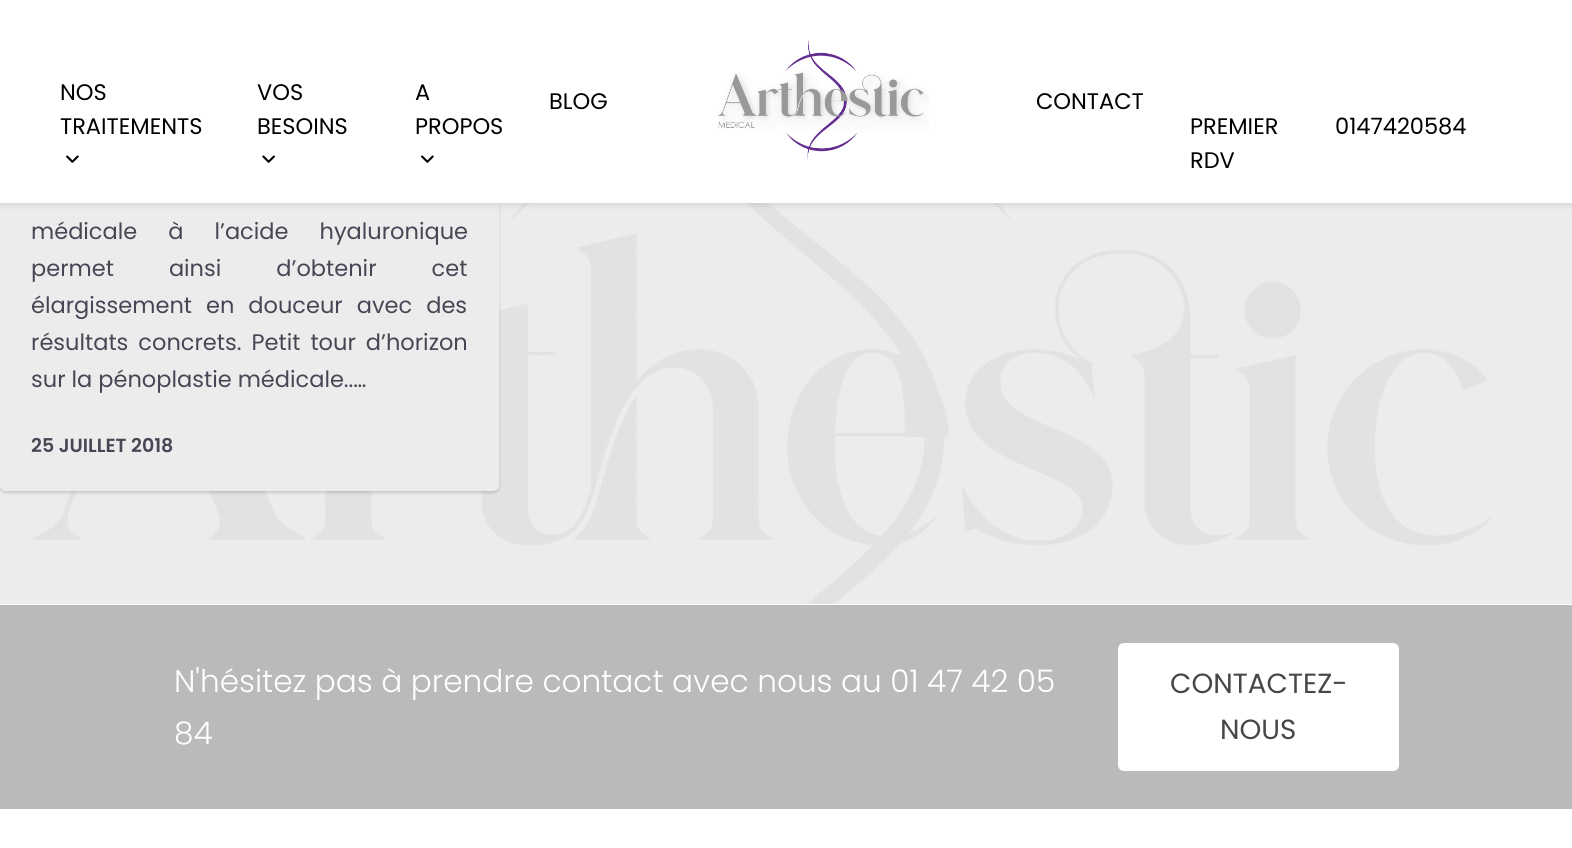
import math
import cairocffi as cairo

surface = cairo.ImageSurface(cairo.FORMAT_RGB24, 1572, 848)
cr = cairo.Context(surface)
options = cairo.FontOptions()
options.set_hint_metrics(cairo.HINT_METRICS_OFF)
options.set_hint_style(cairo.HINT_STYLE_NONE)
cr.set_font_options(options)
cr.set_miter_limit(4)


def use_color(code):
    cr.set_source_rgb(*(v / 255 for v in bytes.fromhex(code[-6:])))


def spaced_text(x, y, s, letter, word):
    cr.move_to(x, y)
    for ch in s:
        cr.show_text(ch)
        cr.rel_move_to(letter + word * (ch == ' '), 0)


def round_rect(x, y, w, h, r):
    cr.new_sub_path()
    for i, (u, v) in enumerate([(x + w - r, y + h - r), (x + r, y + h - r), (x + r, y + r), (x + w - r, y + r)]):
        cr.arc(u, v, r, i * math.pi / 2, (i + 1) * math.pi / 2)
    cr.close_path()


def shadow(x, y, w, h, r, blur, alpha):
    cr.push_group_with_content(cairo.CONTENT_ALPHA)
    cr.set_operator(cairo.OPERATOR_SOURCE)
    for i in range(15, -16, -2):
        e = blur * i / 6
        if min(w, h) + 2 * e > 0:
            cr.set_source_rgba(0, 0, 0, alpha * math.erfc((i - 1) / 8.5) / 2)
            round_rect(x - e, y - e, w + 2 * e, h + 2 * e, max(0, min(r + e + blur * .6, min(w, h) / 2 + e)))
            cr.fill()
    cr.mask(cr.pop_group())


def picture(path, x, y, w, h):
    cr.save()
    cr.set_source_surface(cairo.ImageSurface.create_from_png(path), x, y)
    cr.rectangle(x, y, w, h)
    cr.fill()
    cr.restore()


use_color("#ececec")
cr.paint()
picture("img1.png", 33, 203, 1459, 401)
use_color("#000000")
shadow(0, -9, 499, 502, 6, 1, 0.06)
shadow(0, -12, 499, 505, 6, 2, 0.1)
use_color("#ececec")
round_rect(0, -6, 499, 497, 6)
cr.fill()
use_color("#000000")
shadow(0, 3, 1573, 202, 0, 3, 0.1)
use_color("#ffffff")
cr.rectangle(0, 0, 1572, 203)
cr.fill()
cr.select_font_face("Poppins")
cr.set_font_size(22.5)
use_color("#000000")
cr.move_to(60, 100)
cr.show_text("NOS")
cr.move_to(60, 134)
cr.show_text("TRAITEMENTS")
picture("img2.png", 66, 155, 13, 8)
cr.move_to(257, 100)
cr.show_text("VOS")
cr.move_to(257, 134)
cr.show_text("BESOINS")
picture("img3.png", 262, 155, 13, 8)
cr.move_to(415, 100)
cr.show_text("A")
cr.move_to(415, 134)
cr.show_text("PROPOS")
picture("img2.png", 421, 155, 13, 8)
cr.move_to(549, 109)
cr.show_text("BLOG")
picture("img4.png", 718, 40, 211, 120)
cr.move_to(1036, 109)
cr.show_text("CONTACT")
cr.move_to(1190, 134)
cr.show_text("PREMIER")
cr.move_to(1190, 168)
cr.show_text("RDV")
cr.move_to(1335, 134)
cr.show_text("0147420584")
use_color("#4a4554")
spaced_text(31, 239, "médicale à l’acide hyaluronique", 0, 25)
spaced_text(31, 276, "permet ainsi d’obtenir cet", 0, 49)
spaced_text(31, 313, "élargissement en douceur avec des", 0, 8)
spaced_text(31, 350, "résultats concrets. Petit tour d’horizon", 0, 4)
cr.move_to(31, 387)
cr.show_text("sur la pénoplastie médicale..…")
cr.select_font_face("Poppins SemiBold")
cr.set_font_size(19)
cr.move_to(31, 452)
cr.show_text("25 JUILLET 2018")
use_color("#bababa")
cr.rectangle(0, 605, 1572, 204)
cr.fill()
use_color("#ffffff")
cr.rectangle(0, 604, 1572, 1)
cr.fill()
cr.rectangle(0, 809, 1572, 39)
cr.fill()
cr.select_font_face("Poppins Light")
cr.set_font_size(31.15)
cr.move_to(174, 692)
cr.show_text("N'hésitez pas à prendre contact avec nous au 01 47 42 05")
cr.move_to(174, 744)
cr.show_text("84")
round_rect(1118, 643, 281, 128, 6)
cr.fill()
cr.select_font_face("Poppins")
cr.set_font_size(27.75)
use_color("#474747")
cr.move_to(1170, 693)
cr.show_text("CONTACTEZ-")
cr.move_to(1220, 739)
cr.show_text("NOUS")
surface.write_to_png("result.png")
